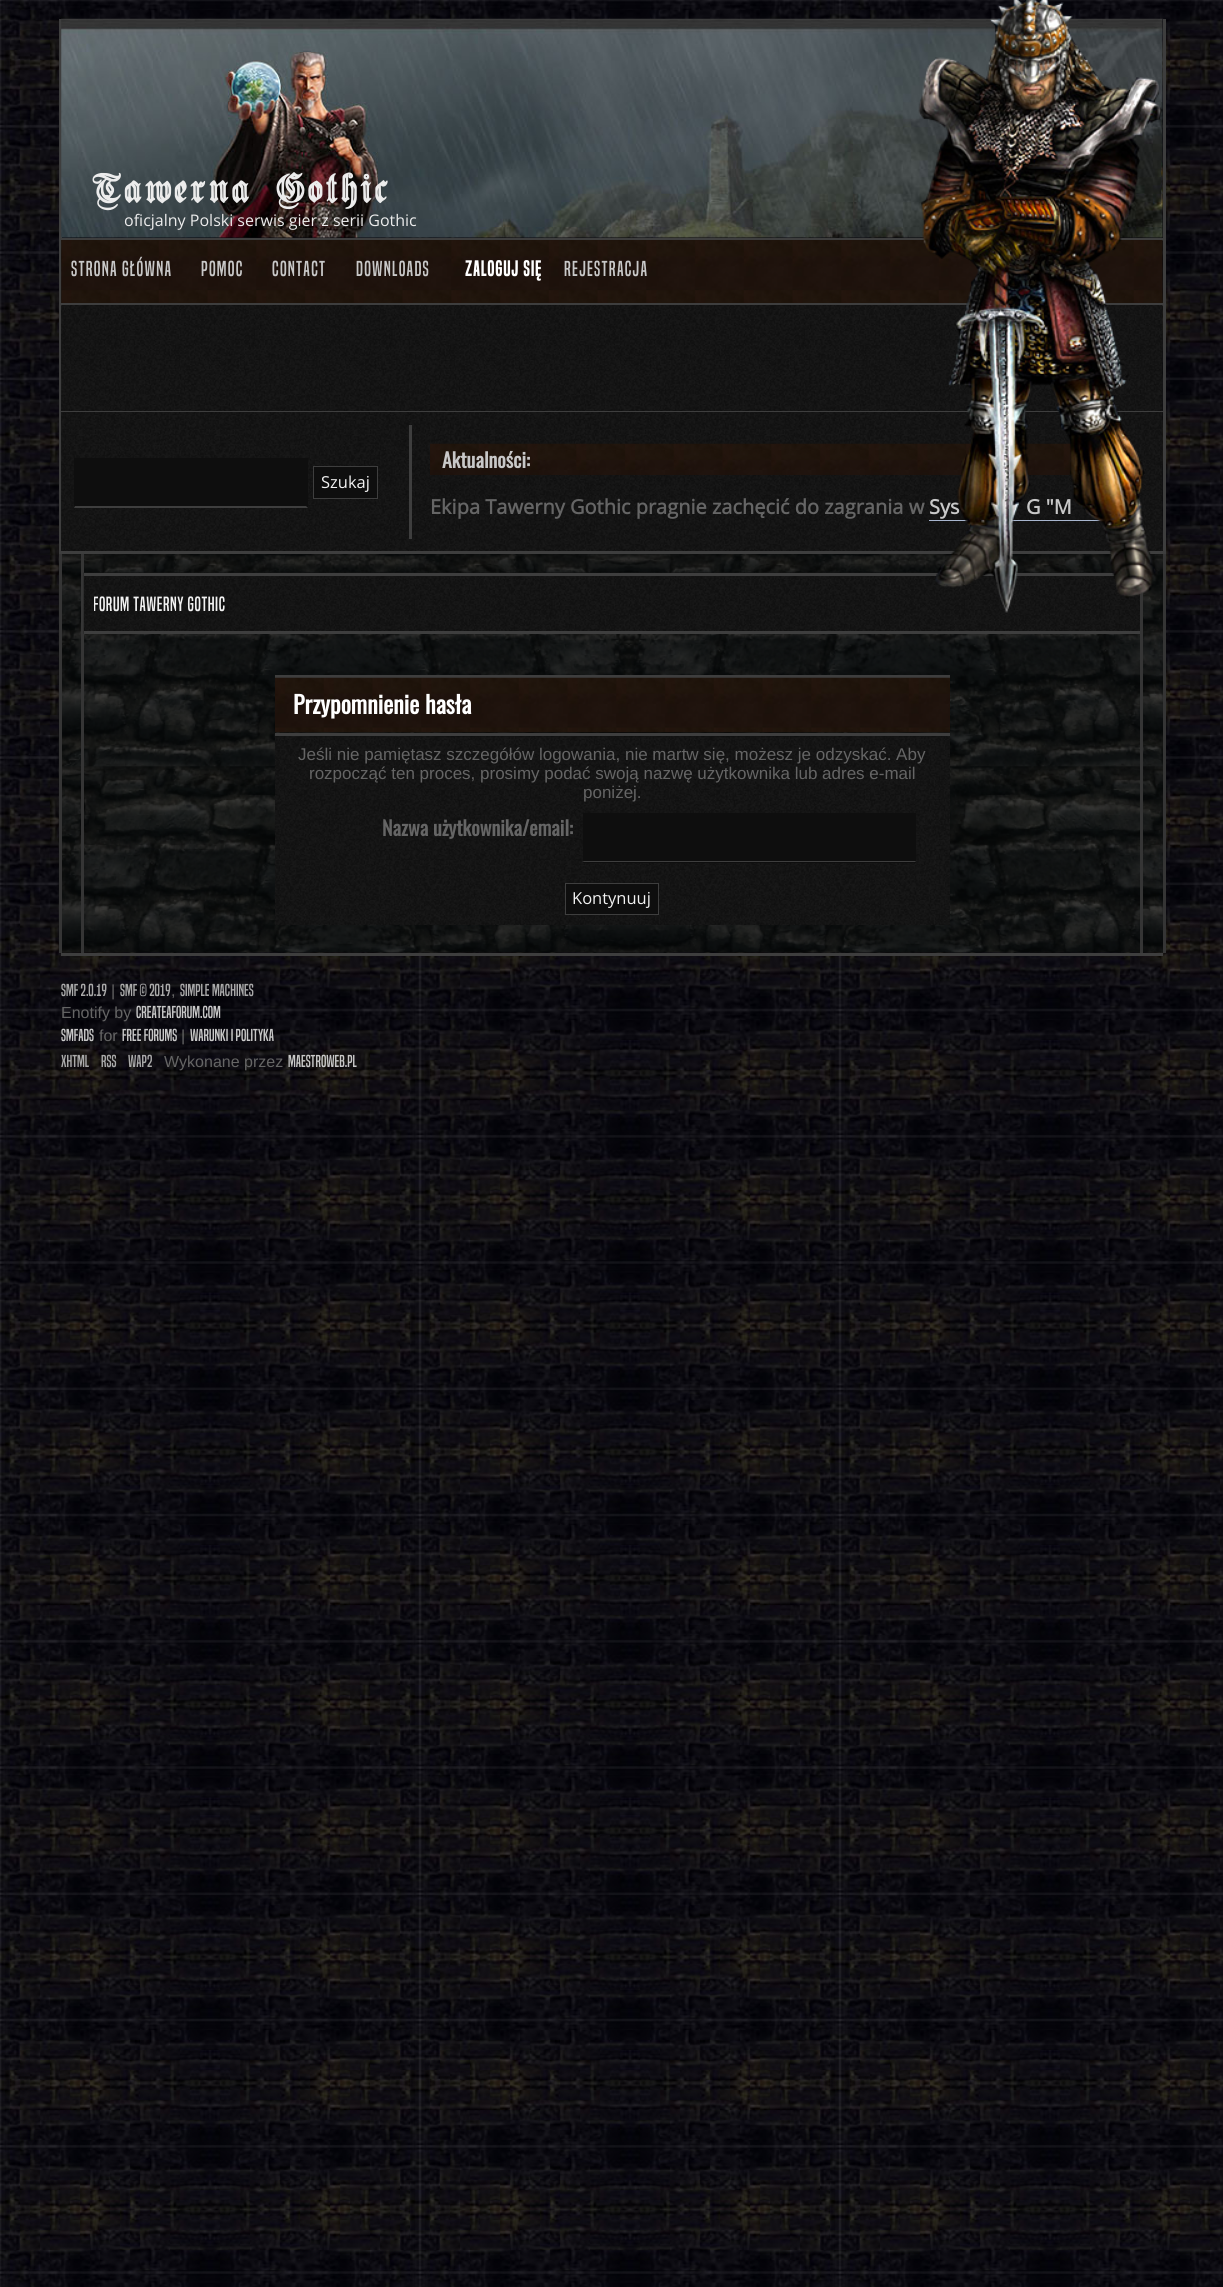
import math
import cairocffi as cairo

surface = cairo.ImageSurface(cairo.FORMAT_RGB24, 1223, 2287)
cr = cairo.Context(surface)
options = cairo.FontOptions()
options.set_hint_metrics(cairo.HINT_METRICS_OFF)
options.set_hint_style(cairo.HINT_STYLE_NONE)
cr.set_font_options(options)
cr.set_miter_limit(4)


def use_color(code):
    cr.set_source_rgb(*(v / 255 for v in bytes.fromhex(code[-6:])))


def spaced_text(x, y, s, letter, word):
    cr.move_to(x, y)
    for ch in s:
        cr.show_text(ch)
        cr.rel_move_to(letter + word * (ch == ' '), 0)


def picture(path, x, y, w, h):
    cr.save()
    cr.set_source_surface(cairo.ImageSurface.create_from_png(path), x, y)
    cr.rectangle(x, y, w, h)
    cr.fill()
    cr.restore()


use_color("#ffffff")
cr.paint()
picture("img1.png", 0, 0, 1223, 2287)
use_color("#3e3e3e")
cr.rectangle(1163, 19, 3, 535)
cr.fill()
picture("img8.png", 58, 553, 1105, 400)
cr.rectangle(59, 19, 3, 535)
cr.fill()
picture("img2.png", 61, 18, 1102, 220)
cr.rectangle(61, 238, 1102, 3)
cr.fill()
cr.select_font_face("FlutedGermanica", cairo.FONT_SLANT_NORMAL, cairo.FONT_WEIGHT_BOLD)
cr.set_font_size(36)
use_color("#ececec")
spaced_text(92, 203, "Tawerna Gothic", 3.75, 0)
cr.select_font_face("Open Sans")
cr.set_font_size(16)
cr.move_to(124, 226)
cr.show_text("oficjalny Polski serwis gier z serii Gothic")
picture("img3.png", 61, 240, 1102, 311)
picture("img4.png", 61, 240, 1102, 63)
use_color("#3e3e3e")
cr.rectangle(61, 303, 1102, 3)
cr.fill()
cr.select_font_face("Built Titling")
cr.set_font_size(20)
use_color("#c8c8c8")
spaced_text(71, 276, "STRONA GŁÓWNA", 1.25, 0)
spaced_text(201, 276, "POMOC", 1.25, 0)
spaced_text(272, 276, "CONTACT", 1.25, 0)
spaced_text(356, 276, "DOWNLOADS", 1.25, 0)
cr.select_font_face("Built Titling", cairo.FONT_SLANT_NORMAL, cairo.FONT_WEIGHT_BOLD)
use_color("#ffffff")
spaced_text(465, 276, "ZALOGUJ SIĘ", 1.25, 0)
cr.select_font_face("Built Titling")
use_color("#c8c8c8")
spaced_text(564, 276, "REJESTRACJA", 1.25, 0)
picture("img6.png", 61, 305, 1102, 246)
use_color("#3e3e3e")
cr.rectangle(61, 551, 1102, 3)
cr.fill()
cr.rectangle(61, 411, 1102, 1)
cr.fill()
picture("img7.png", 430, 443, 700, 32)
cr.select_font_face("Open Sans", cairo.FONT_SLANT_NORMAL, cairo.FONT_WEIGHT_BOLD)
use_color("#656565")
cr.move_to(430, 514)
cr.show_text("Ekipa Tawerny Gothic pragnie zachęcić do zagrania w")
use_color("#c8c8c8")
cr.move_to(929, 514)
cr.show_text("Sys")
use_color("#a8b6cf")
cr.rectangle(929, 520, 173, 1)
cr.fill()
use_color("#c8c8c8")
cr.move_to(1026, 514)
cr.show_text("G \"M")
use_color("#353535")
cr.rectangle(1140, 592, 3, 361)
cr.fill()
cr.rectangle(81, 554, 3, 399)
cr.fill()
picture("img9.png", 83, 572, 1057, 62)
use_color("#3e3e3e")
cr.rectangle(84, 573, 1032, 3)
cr.fill()
picture("img5.png", 918, 0, 245, 613)
use_color("#0e0e0e")
cr.rectangle(74, 458, 234, 50)
cr.fill()
use_color("#3e3e3e")
cr.new_path()
cr.move_to(308, 508)
cr.line_to(74, 508)
cr.line_to(75, 506)
cr.line_to(306, 506)
cr.close_path()
cr.fill()
use_color("#0e0e0e")
cr.rectangle(313.5, 466.5, 64, 32)
cr.fill_preserve()
use_color("#3e3e3e")
cr.set_line_width(1)
cr.stroke()
cr.select_font_face("Open Sans")
cr.set_font_size(16.5)
use_color("#f2f2f2")
cr.move_to(321, 488)
cr.show_text("Szukaj")
use_color("#3e3e3e")
cr.rectangle(409, 425, 3, 114)
cr.fill()
cr.select_font_face("Oswald", cairo.FONT_SLANT_NORMAL, cairo.FONT_WEIGHT_BOLD)
cr.set_font_size(20)
use_color("#c8c8c8")
cr.move_to(442, 468)
cr.show_text("Aktualności:")
use_color("#353535")
cr.rectangle(1163, 554, 3, 399)
cr.fill()
cr.rectangle(59, 554, 3, 399)
cr.fill()
use_color("#3e3e3e")
cr.rectangle(84, 631, 1056, 3)
cr.fill()
cr.save()
cr.rectangle(94, 585, 1036, 36)
cr.clip()
cr.select_font_face("Built Titling")
cr.set_font_size(19)
use_color("#f2f2f2")
spaced_text(93, 611, "Forum Tawerny Gothic", 0.6, 0)
cr.restore()
cr.rectangle(275, 675, 675, 3)
cr.fill()
cr.rectangle(275, 733, 675, 3)
cr.fill()
picture("img10.png", 275, 677, 675, 56)
cr.set_font_size(24)
use_color("#ffffff")
cr.move_to(293, 714)
cr.show_text("Przypomnienie hasła")
picture("img11.png", 275, 736, 675, 189)
cr.select_font_face("Liberation Sans")
cr.set_font_size(17)
use_color("#656565")
cr.move_to(298, 760)
cr.show_text("Jeśli nie pamiętasz szczegółów logowania, nie martw się, możesz je odzyskać. Aby")
cr.move_to(309, 779)
cr.show_text("rozpocząć ten proces, prosimy podać swoją nazwę użytkownika lub adres e-mail")
cr.move_to(583, 798)
cr.show_text("poniżej.")
cr.select_font_face("Oswald", cairo.FONT_SLANT_NORMAL, cairo.FONT_WEIGHT_BOLD)
cr.set_font_size(20)
cr.move_to(382, 836)
cr.show_text("Nazwa użytkownika/email:")
use_color("#0e0e0e")
cr.rectangle(583, 813, 333, 50)
cr.fill()
use_color("#3e3e3e")
cr.new_path()
cr.move_to(916, 862)
cr.line_to(582, 862)
cr.line_to(584, 861)
cr.line_to(915, 861)
cr.close_path()
cr.fill()
use_color("#0e0e0e")
cr.rectangle(565.5, 883.5, 93, 31)
cr.fill_preserve()
use_color("#3e3e3e")
cr.stroke()
cr.select_font_face("Open Sans")
cr.set_font_size(16.5)
use_color("#f2f2f2")
cr.move_to(572, 904)
cr.show_text("Kontynuuj")
use_color("#3e3e3e")
cr.rectangle(61, 953, 1102, 3)
cr.fill()
cr.select_font_face("Built Titling")
cr.set_font_size(16)
use_color("#aaaaaa")
cr.move_to(61, 996)
cr.show_text("SMF 2.0.19")
cr.select_font_face("Liberation Sans")
use_color("#656565")
cr.move_to(111, 996)
cr.show_text("|")
cr.select_font_face("Built Titling")
use_color("#aaaaaa")
cr.move_to(120, 996)
cr.show_text("SMF © 2019")
cr.select_font_face("Liberation Sans")
use_color("#656565")
cr.move_to(171, 996)
cr.show_text(",")
cr.select_font_face("Built Titling")
use_color("#aaaaaa")
cr.move_to(180, 996)
cr.show_text("Simple Machines")
cr.select_font_face("Liberation Sans")
use_color("#656565")
cr.move_to(61, 1018)
cr.show_text("Enotify by")
cr.select_font_face("Built Titling")
use_color("#c8c8c8")
cr.move_to(136, 1018)
cr.show_text("CreateAForum.com")
cr.move_to(61, 1041)
cr.show_text("SMFAds")
cr.select_font_face("Liberation Sans")
use_color("#656565")
cr.move_to(99, 1041)
cr.show_text("for")
cr.select_font_face("Built Titling")
use_color("#c8c8c8")
cr.move_to(122, 1041)
cr.show_text("Free Forums")
cr.select_font_face("Liberation Sans")
use_color("#656565")
cr.move_to(181, 1041)
cr.show_text("|")
cr.select_font_face("Built Titling")
use_color("#c8c8c8")
cr.move_to(190, 1041)
cr.show_text("Warunki i polityka")
use_color("#aaaaaa")
cr.move_to(61, 1067)
cr.show_text("XHTML")
cr.move_to(101, 1067)
cr.show_text("RSS")
cr.move_to(128, 1067)
cr.show_text("WAP2")
cr.select_font_face("Liberation Sans")
use_color("#656565")
cr.move_to(164, 1067)
cr.show_text("Wykonane przez")
cr.select_font_face("Built Titling")
use_color("#c8c8c8")
cr.move_to(288, 1067)
cr.show_text("MaestroWeb.pl")
surface.write_to_png("result.png")
